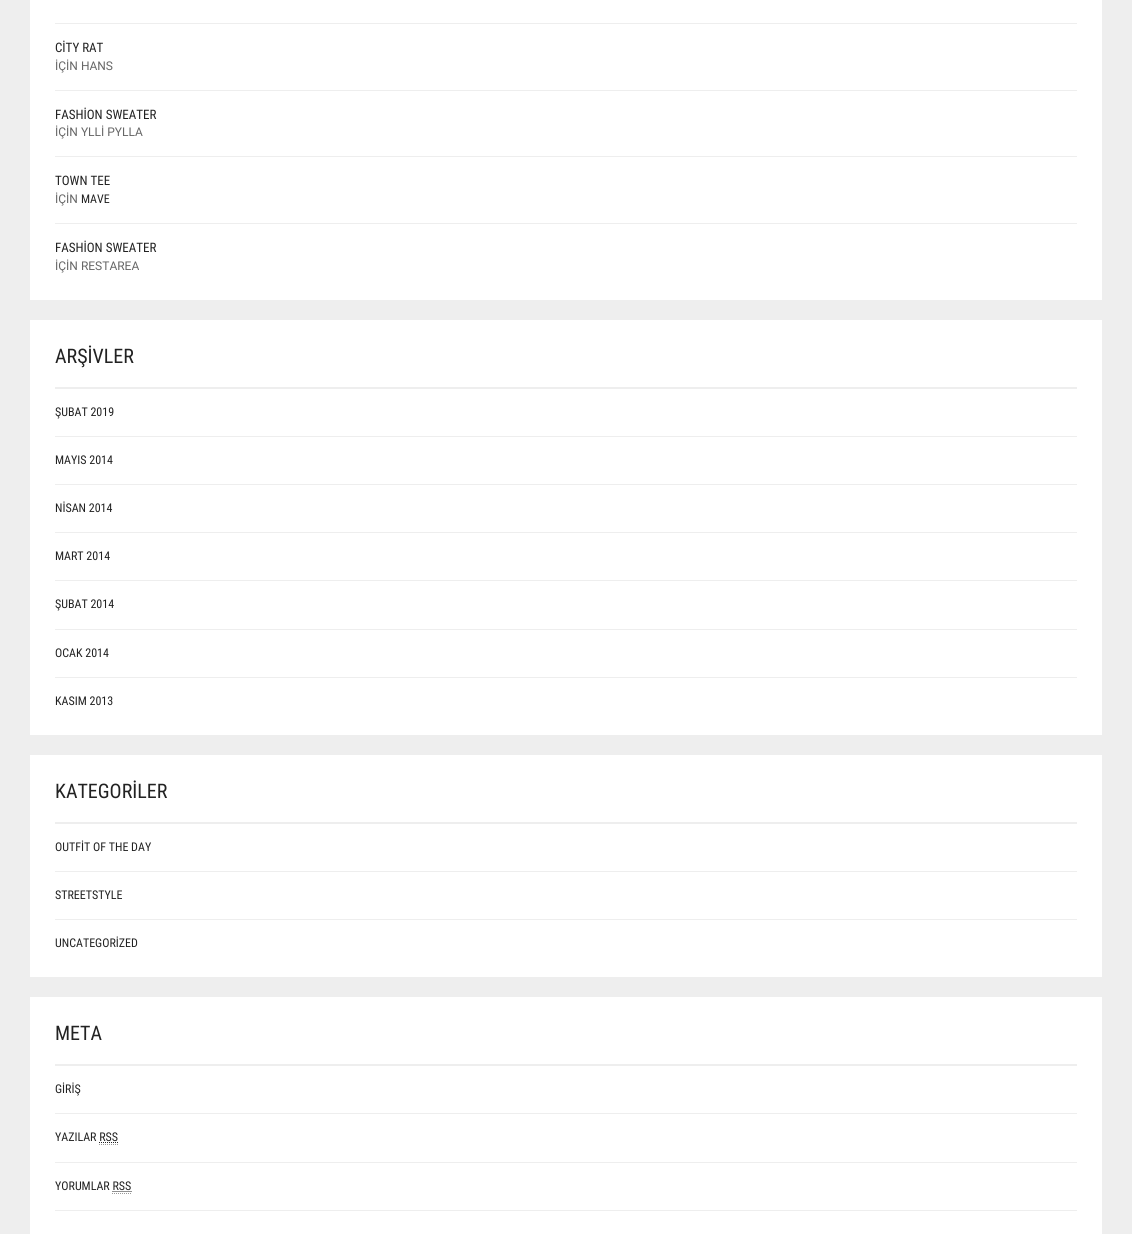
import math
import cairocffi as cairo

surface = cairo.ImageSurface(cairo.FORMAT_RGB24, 1132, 1234)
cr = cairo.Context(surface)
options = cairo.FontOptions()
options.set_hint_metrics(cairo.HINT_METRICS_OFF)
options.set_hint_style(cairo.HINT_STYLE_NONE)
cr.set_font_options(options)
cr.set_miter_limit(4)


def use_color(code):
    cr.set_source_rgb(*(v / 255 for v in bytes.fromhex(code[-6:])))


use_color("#eeeeee")
cr.paint()
use_color("#ffffff")
cr.rectangle(30, 0, 1072, 300)
cr.fill()
use_color("#eeeeee")
cr.rectangle(55, 23, 1022, 1)
cr.fill()
cr.rectangle(55, 90, 1022, 1)
cr.fill()
cr.select_font_face("Roboto Condensed")
cr.set_font_size(13)
use_color("#222222")
cr.move_to(55, 52)
cr.show_text("CİTY RAT")
cr.select_font_face("Roboto")
cr.set_font_size(12)
use_color("#666666")
cr.move_to(55, 70)
cr.show_text("İÇİN HANS")
use_color("#eeeeee")
cr.rectangle(55, 156, 1022, 1)
cr.fill()
cr.select_font_face("Roboto Condensed")
cr.set_font_size(13)
use_color("#222222")
cr.move_to(55, 119)
cr.show_text("FASHİON SWEATER")
cr.select_font_face("Roboto")
cr.set_font_size(12)
use_color("#666666")
cr.move_to(55, 136)
cr.show_text("İÇİN YLLİ PYLLA")
use_color("#eeeeee")
cr.rectangle(55, 223, 1022, 1)
cr.fill()
cr.select_font_face("Roboto Condensed")
cr.set_font_size(13)
use_color("#222222")
cr.move_to(55, 185)
cr.show_text("TOWN TEE")
cr.select_font_face("Roboto")
cr.set_font_size(12)
use_color("#666666")
cr.move_to(55, 203)
cr.show_text("İÇİN")
cr.select_font_face("Roboto Condensed")
use_color("#222222")
cr.move_to(81, 203)
cr.show_text("MAVE")
cr.set_font_size(13)
cr.move_to(55, 252)
cr.show_text("FASHİON SWEATER")
cr.select_font_face("Roboto")
cr.set_font_size(12)
use_color("#666666")
cr.move_to(55, 270)
cr.show_text("İÇİN RESTAREA")
use_color("#ffffff")
cr.rectangle(30, 320, 1072, 415)
cr.fill()
use_color("#eeeeee")
cr.rectangle(55, 387, 1022, 2)
cr.fill()
cr.select_font_face("Roboto Condensed")
cr.set_font_size(20)
use_color("#222222")
cr.move_to(55, 363)
cr.show_text("ARŞİVLER")
use_color("#eeeeee")
cr.rectangle(55, 436, 1022, 1)
cr.fill()
cr.set_font_size(12)
use_color("#222222")
cr.move_to(55, 416)
cr.show_text("ŞUBAT 2019")
use_color("#eeeeee")
cr.rectangle(55, 484, 1022, 1)
cr.fill()
use_color("#222222")
cr.move_to(55, 464)
cr.show_text("MAYIS 2014")
use_color("#eeeeee")
cr.rectangle(55, 532, 1022, 1)
cr.fill()
use_color("#222222")
cr.move_to(55, 512)
cr.show_text("NİSAN 2014")
use_color("#eeeeee")
cr.rectangle(55, 580, 1022, 1)
cr.fill()
use_color("#222222")
cr.move_to(55, 560)
cr.show_text("MART 2014")
use_color("#eeeeee")
cr.rectangle(55, 629, 1022, 1)
cr.fill()
use_color("#222222")
cr.move_to(55, 608)
cr.show_text("ŞUBAT 2014")
use_color("#eeeeee")
cr.rectangle(55, 677, 1022, 1)
cr.fill()
use_color("#222222")
cr.move_to(55, 657)
cr.show_text("OCAK 2014")
cr.move_to(55, 705)
cr.show_text("KASIM 2013")
use_color("#ffffff")
cr.rectangle(30, 755, 1072, 222)
cr.fill()
use_color("#eeeeee")
cr.rectangle(55, 822, 1022, 2)
cr.fill()
cr.set_font_size(20)
use_color("#222222")
cr.move_to(55, 798)
cr.show_text("KATEGORİLER")
use_color("#eeeeee")
cr.rectangle(55, 871, 1022, 1)
cr.fill()
cr.set_font_size(12)
use_color("#222222")
cr.move_to(55, 851)
cr.show_text("OUTFİT OF THE DAY")
use_color("#eeeeee")
cr.rectangle(55, 919, 1022, 1)
cr.fill()
use_color("#222222")
cr.move_to(55, 899)
cr.show_text("STREETSTYLE")
cr.move_to(55, 947)
cr.show_text("UNCATEGORİZED")
use_color("#ffffff")
cr.rectangle(30, 997, 1072, 237)
cr.fill()
use_color("#eeeeee")
cr.rectangle(55, 1064, 1022, 2)
cr.fill()
cr.set_font_size(20)
use_color("#222222")
cr.move_to(55, 1040)
cr.show_text("META")
use_color("#eeeeee")
cr.rectangle(55, 1113, 1022, 1)
cr.fill()
cr.set_font_size(12)
use_color("#222222")
cr.move_to(55, 1093)
cr.show_text("GİRİŞ")
use_color("#eeeeee")
cr.rectangle(55, 1162, 1022, 1)
cr.fill()
use_color("#222222")
cr.move_to(55, 1141)
cr.show_text("YAZILAR RSS")
cr.new_path()
cr.move_to(99, 1144.5)
cr.line_to(118, 1144.5)
use_color("#999999")
cr.set_line_width(1)
cr.set_dash([1, 1])
cr.stroke()
cr.new_path()
cr.move_to(99, 1142.5)
cr.line_to(118, 1142.5)
use_color("#222222")
cr.stroke()
use_color("#eeeeee")
cr.rectangle(55, 1210, 1022, 1)
cr.fill()
use_color("#222222")
cr.move_to(55, 1190)
cr.show_text("YORUMLAR RSS")
cr.new_path()
cr.move_to(112, 1193.5)
cr.line_to(131, 1193.5)
use_color("#999999")
cr.stroke()
cr.new_path()
cr.move_to(112.5, 1191.5)
cr.line_to(131.5, 1191.5)
use_color("#222222")
cr.stroke()
surface.write_to_png("result.png")
